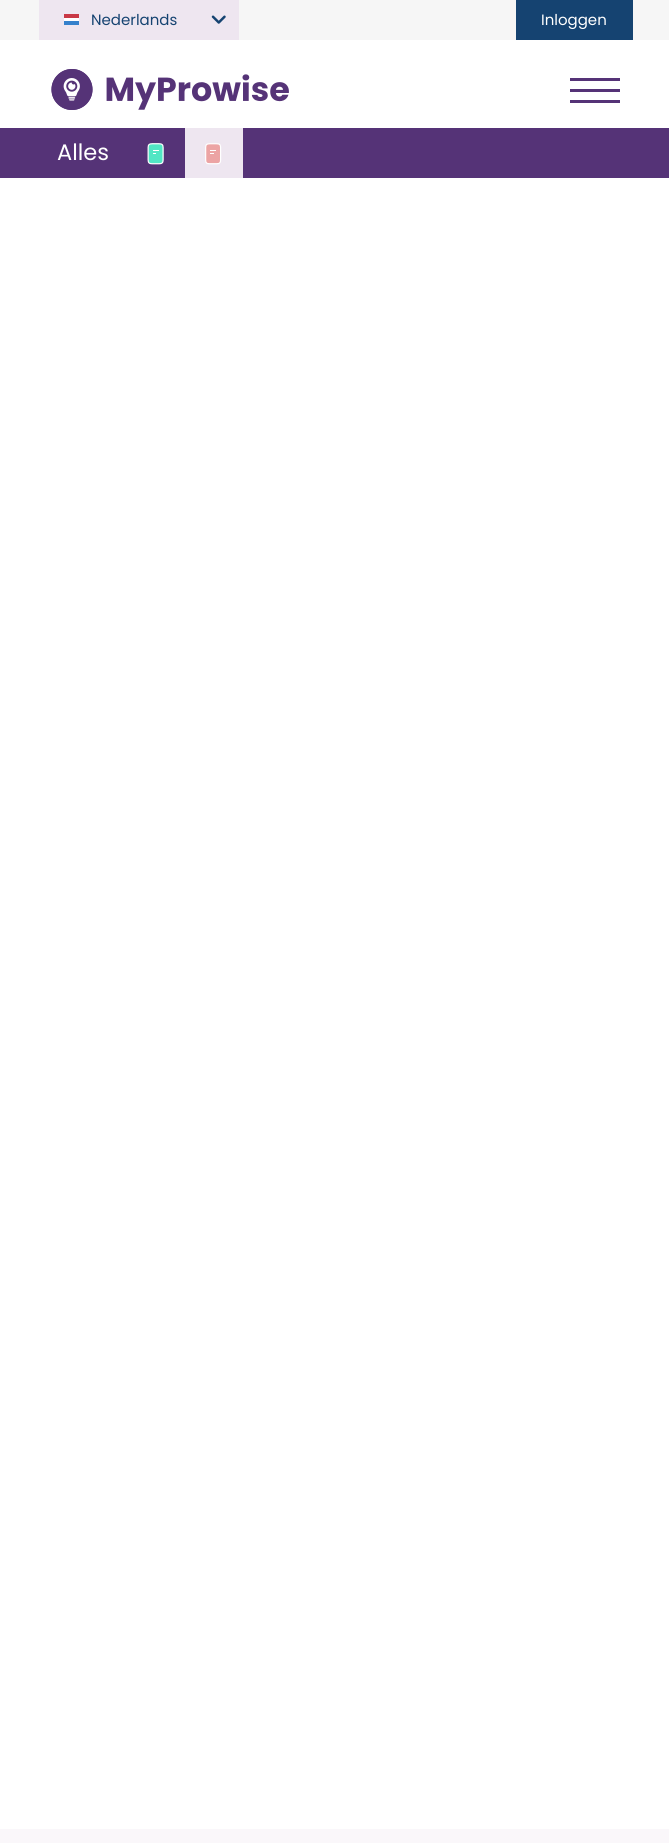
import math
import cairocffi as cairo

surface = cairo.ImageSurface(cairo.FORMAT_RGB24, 669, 1843)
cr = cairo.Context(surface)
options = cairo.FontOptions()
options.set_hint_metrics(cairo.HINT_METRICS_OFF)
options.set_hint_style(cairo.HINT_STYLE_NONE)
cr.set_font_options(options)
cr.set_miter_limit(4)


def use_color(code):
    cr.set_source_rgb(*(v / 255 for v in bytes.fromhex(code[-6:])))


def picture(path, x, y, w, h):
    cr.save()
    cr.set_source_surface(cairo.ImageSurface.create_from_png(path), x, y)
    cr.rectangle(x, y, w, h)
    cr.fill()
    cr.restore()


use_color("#faf7fa")
cr.paint()
use_color("#ffffff")
cr.rectangle(0, 40, 669, 88)
cr.fill()
use_color("#f6f6f6")
cr.rectangle(0, 0, 669, 40)
cr.fill()
use_color("#eee6f0")
cr.rectangle(39, 0, 200, 40)
cr.fill()
use_color("#c93846")
cr.rectangle(64, 14, 15, 4)
cr.fill()
use_color("#ffffff")
cr.rectangle(64, 18, 15, 3)
cr.fill()
use_color("#3581cc")
cr.rectangle(64, 21, 15, 4)
cr.fill()
cr.select_font_face("Poppins")
cr.set_font_size(15)
use_color("#154371")
cr.move_to(91, 25)
cr.show_text("Nederlands")
picture("img1.png", 211, 15, 15, 9)
cr.rectangle(516, 0, 117, 40)
cr.fill()
use_color("#ffffff")
cr.move_to(541, 25)
cr.show_text("Inloggen")
picture("img2.png", 51, 69, 238, 41)
use_color("#553377")
cr.rectangle(570, 78, 50, 3)
cr.fill()
cr.rectangle(570, 89, 50, 3)
cr.fill()
cr.rectangle(570, 100, 50, 3)
cr.fill()
cr.rectangle(0, 128, 669, 50)
cr.fill()
cr.set_font_size(22.5)
use_color("#ffffff")
cr.move_to(57, 160)
cr.show_text("Alles")
picture("img3.png", 147, 143, 17, 22)
use_color("#eee6f0")
cr.rectangle(185, 128, 58, 50)
cr.fill()
picture("img4.png", 205, 143, 17, 22)
use_color("#ffffff")
cr.rectangle(0, 178, 669, 1651)
cr.fill()
surface.write_to_png("result.png")
